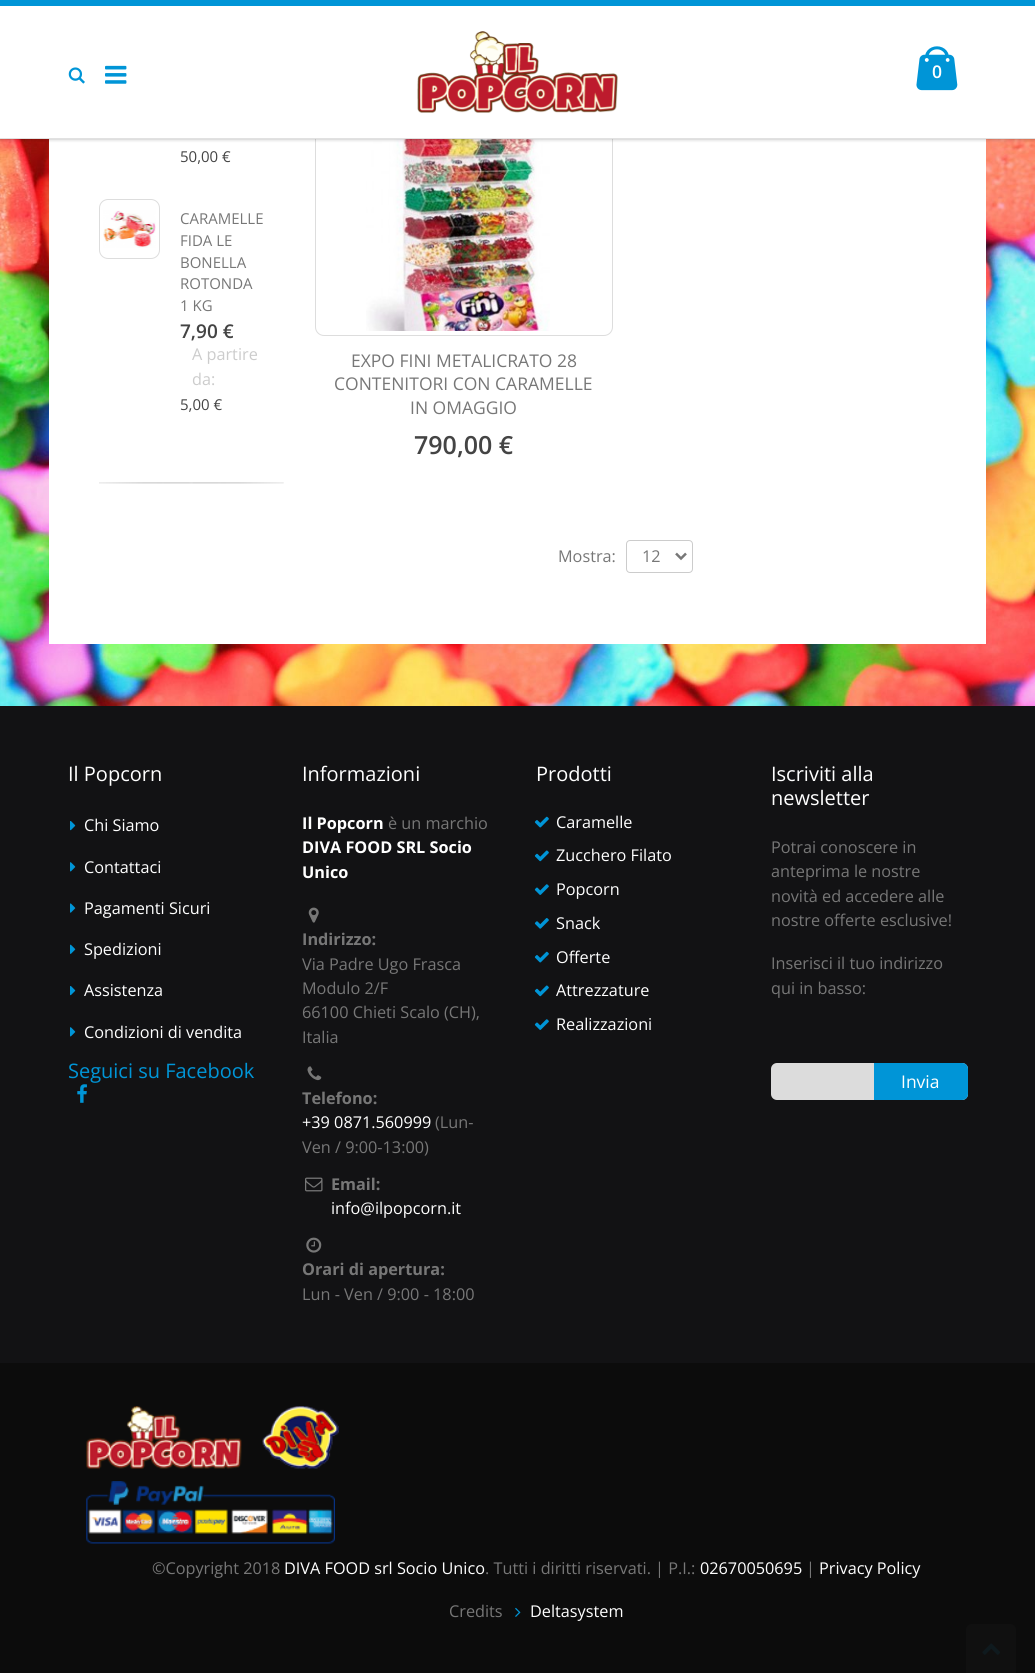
import math
import cairocffi as cairo

surface = cairo.ImageSurface(cairo.FORMAT_RGB24, 1035, 1673)
cr = cairo.Context(surface)
options = cairo.FontOptions()
options.set_hint_metrics(cairo.HINT_METRICS_OFF)
options.set_hint_style(cairo.HINT_STYLE_NONE)
cr.set_font_options(options)
cr.set_miter_limit(4)


def use_color(code):
    cr.set_source_rgb(*(v / 255 for v in bytes.fromhex(code[-6:])))


def round_rect(x, y, w, h, r):
    cr.new_sub_path()
    for i, (u, v) in enumerate([(x + w - r, y + h - r), (x + r, y + h - r), (x + r, y + r), (x + w - r, y + r)]):
        cr.arc(u, v, r, i * math.pi / 2, (i + 1) * math.pi / 2)
    cr.close_path()


def shadow(x, y, w, h, r, blur, alpha):
    cr.push_group_with_content(cairo.CONTENT_ALPHA)
    cr.set_operator(cairo.OPERATOR_SOURCE)
    for i in range(15, -16, -2):
        e = blur * i / 6
        if min(w, h) + 2 * e > 0:
            cr.set_source_rgba(0, 0, 0, alpha * math.erfc((i - 1) / 8.5) / 2)
            round_rect(x - e, y - e, w + 2 * e, h + 2 * e, max(0, min(r + e + blur * .6, min(w, h) / 2 + e)))
            cr.fill()
    cr.mask(cr.pop_group())


def picture(path, x, y, w, h):
    cr.save()
    cr.set_source_surface(cairo.ImageSurface.create_from_png(path), x, y)
    cr.rectangle(x, y, w, h)
    cr.fill()
    cr.restore()


use_color("#ffffff")
cr.paint()
picture("img5.png", 0, 139, 1035, 567)
use_color("#ffffff")
cr.rectangle(49, 139, 937, 505)
cr.fill()
round_rect(315.5, 39.5, 297, 296, 8.5)
use_color("#dddddd")
cr.set_line_width(1)
cr.stroke()
picture("img8.png", 366, 139, 184, 192)
use_color("#000000")
shadow(0, 0, 1035, 139, 0, 2, 0.3)
use_color("#ffffff")
cr.rectangle(0, 6, 1035, 132)
cr.fill()
use_color("#0095d7")
cr.rectangle(0, 0, 1035, 6)
cr.fill()
use_color("#e1e1e1")
cr.rectangle(0, 138, 1035, 1)
cr.fill()
picture("img1.png", 68, 67, 17, 17)
picture("img2.png", 105, 65, 22, 19)
picture("img3.png", 417, 31, 201, 82)
picture("img4.png", 916, 46, 42, 45)
cr.select_font_face("Open Sans SemiBold")
cr.set_font_size(17.5)
use_color("#ffffff")
cr.move_to(932, 78)
cr.show_text("0")
picture("img6.png", 99, 482, 185, 2)
cr.select_font_face("Open Sans")
cr.set_font_size(15)
use_color("#444444")
cr.move_to(180, 162)
cr.show_text("50,00 €")
round_rect(99.5, 199.5, 60, 59, 8.5)
use_color("#dddddd")
cr.stroke()
picture("img7.png", 103, 210, 53, 38)
use_color("#777777")
cr.move_to(180, 224)
cr.show_text("CARAMELLE")
cr.move_to(180, 246)
cr.show_text("FIDA LE")
cr.move_to(180, 268)
cr.show_text("BONELLA")
cr.move_to(180, 289)
cr.show_text("ROTONDA")
cr.move_to(180, 311)
cr.show_text("1 KG")
cr.select_font_face("Open Sans SemiBold")
cr.set_font_size(19)
use_color("#444444")
cr.move_to(180, 338)
cr.show_text("7,90 €")
cr.select_font_face("Open Sans")
cr.set_font_size(16.25)
use_color("#cccccc")
cr.move_to(192, 360)
cr.show_text("A partire")
cr.move_to(192, 385)
cr.show_text("da:")
cr.set_font_size(15)
use_color("#444444")
cr.move_to(180, 410)
cr.show_text("5,00 €")
cr.set_font_size(17.5)
use_color("#777777")
cr.move_to(351, 367)
cr.show_text("EXPO FINI METALICRATO 28")
cr.move_to(334, 390)
cr.show_text("CONTENITORI CON CARAMELLE")
cr.move_to(410, 414)
cr.show_text("IN OMAGGIO")
cr.select_font_face("Open Sans SemiBold")
cr.set_font_size(25)
use_color("#444444")
cr.move_to(414, 454)
cr.show_text("790,00 €")
cr.select_font_face("Open Sans")
cr.set_font_size(16.25)
use_color("#777777")
cr.move_to(558, 562)
cr.show_text("Mostra:")
round_rect(626.5, 540.5, 66, 32, 3.5)
use_color("#cccccc")
cr.stroke()
cr.new_path()
cr.move_to(676, 553.5)
cr.line_to(681, 558.5)
cr.line_to(686, 553.5)
use_color("#777777")
cr.set_line_width(2.5)
cr.stroke()
cr.move_to(642, 562)
cr.show_text("12")
use_color("#121214")
cr.rectangle(0, 706, 1035, 657)
cr.fill()
cr.set_font_size(20)
use_color("#ffffff")
cr.move_to(68, 781)
cr.show_text("Il Popcorn")
picture("img9.png", 70, 821, 6, 10)
cr.set_font_size(16.25)
cr.move_to(84, 831)
cr.show_text("Chi Siamo")
picture("img10.png", 70, 862, 6, 10)
cr.move_to(84, 873)
cr.show_text("Contattaci")
picture("img11.png", 70, 903, 6, 10)
cr.move_to(84, 914)
cr.show_text("Pagamenti Sicuri")
picture("img12.png", 70, 944, 6, 10)
cr.move_to(84, 955)
cr.show_text("Spedizioni")
picture("img9.png", 70, 986, 6, 10)
cr.move_to(84, 996)
cr.show_text("Assistenza")
picture("img10.png", 70, 1027, 6, 10)
cr.move_to(84, 1038)
cr.show_text("Condizioni di vendita")
cr.set_font_size(20)
use_color("#0095d7")
cr.move_to(68, 1078)
cr.show_text("Seguici su Facebook")
picture("img13.png", 77, 1084, 10, 19)
use_color("#ffffff")
cr.move_to(302, 781)
cr.show_text("Informazioni")
cr.select_font_face("Open Sans", cairo.FONT_SLANT_NORMAL, cairo.FONT_WEIGHT_BOLD)
cr.set_font_size(16.25)
cr.move_to(302, 829)
cr.show_text("Il Popcorn")
cr.select_font_face("Open Sans")
use_color("#777777")
cr.move_to(388, 829)
cr.show_text("è un marchio")
cr.select_font_face("Open Sans", cairo.FONT_SLANT_NORMAL, cairo.FONT_WEIGHT_BOLD)
use_color("#ffffff")
cr.move_to(302, 853)
cr.show_text("DIVA FOOD SRL Socio")
cr.move_to(302, 878)
cr.show_text("Unico")
picture("img14.png", 308, 907, 11, 16)
use_color("#777777")
cr.move_to(302, 945)
cr.show_text("Indirizzo:")
cr.select_font_face("Open Sans")
cr.move_to(302, 970)
cr.show_text("Via Padre Ugo Frasca")
cr.move_to(302, 994)
cr.show_text("Modulo 2/F")
cr.move_to(302, 1018)
cr.show_text("66100 Chieti Scalo (CH),")
cr.move_to(302, 1043)
cr.show_text("Italia")
picture("img15.png", 307, 1066, 15, 15)
cr.select_font_face("Open Sans", cairo.FONT_SLANT_NORMAL, cairo.FONT_WEIGHT_BOLD)
cr.move_to(302, 1104)
cr.show_text("Telefono:")
cr.select_font_face("Open Sans")
use_color("#ffffff")
cr.move_to(302, 1128)
cr.show_text("+39 0871.560999")
use_color("#777777")
cr.move_to(435, 1128)
cr.show_text("(Lun-")
cr.move_to(302, 1153)
cr.show_text("Ven / 9:00-13:00)")
picture("img16.png", 305, 1177, 18, 15)
cr.select_font_face("Open Sans", cairo.FONT_SLANT_NORMAL, cairo.FONT_WEIGHT_BOLD)
cr.move_to(331, 1190)
cr.show_text("Email:")
cr.select_font_face("Open Sans")
use_color("#ffffff")
cr.move_to(331, 1214)
cr.show_text("info@ilpopcorn.it")
picture("img17.png", 306, 1237, 16, 16)
cr.select_font_face("Open Sans", cairo.FONT_SLANT_NORMAL, cairo.FONT_WEIGHT_BOLD)
use_color("#777777")
cr.move_to(302, 1275)
cr.show_text("Orari di apertura:")
cr.select_font_face("Open Sans")
cr.move_to(302, 1300)
cr.show_text("Lun - Ven / 9:00 - 18:00")
cr.set_font_size(20)
use_color("#ffffff")
cr.move_to(536, 781)
cr.show_text("Prodotti")
picture("img18.png", 534, 816, 15, 12)
cr.set_font_size(16.25)
cr.move_to(556, 828)
cr.show_text("Caramelle")
picture("img19.png", 534, 850, 15, 12)
cr.move_to(556, 861)
cr.show_text("Zucchero Filato")
picture("img20.png", 534, 884, 15, 11)
cr.move_to(556, 895)
cr.show_text("Popcorn")
picture("img21.png", 534, 918, 15, 11)
cr.move_to(556, 929)
cr.show_text("Snack")
picture("img18.png", 534, 951, 15, 12)
cr.move_to(556, 963)
cr.show_text("Offerte")
picture("img19.png", 534, 985, 15, 12)
cr.move_to(556, 996)
cr.show_text("Attrezzature")
picture("img20.png", 534, 1019, 15, 11)
cr.move_to(556, 1030)
cr.show_text("Realizzazioni")
cr.set_font_size(20)
cr.move_to(771, 781)
cr.show_text("Iscriviti alla")
cr.move_to(771, 805)
cr.show_text("newsletter")
cr.set_font_size(16.25)
use_color("#777777")
cr.move_to(771, 853)
cr.show_text("Potrai conoscere in")
cr.move_to(771, 877)
cr.show_text("anteprima le nostre")
cr.move_to(771, 902)
cr.show_text("novità ed accedere alle")
cr.move_to(771, 926)
cr.show_text("nostre offerte esclusive!")
cr.move_to(771, 969)
cr.show_text("Inserisci il tuo indirizzo")
cr.move_to(771, 994)
cr.show_text("qui in basso:")
use_color("#dcdcdc")
round_rect(771, 1063, 197, 37, 6)
cr.fill()
use_color("#0095d7")
cr.new_path()
cr.move_to(874, 1063)
cr.line_to(962, 1063)
cr.curve_to(965.5, 1063, 968, 1065.5, 968, 1069)
cr.line_to(968, 1094)
cr.curve_to(968, 1097.5, 965.5, 1100, 962, 1100)
cr.line_to(874, 1100)
cr.close_path()
cr.fill()
cr.set_font_size(17.5)
use_color("#ffffff")
cr.move_to(901, 1088)
cr.show_text("Invia")
use_color("#0c0c0c")
cr.rectangle(0, 1363, 1035, 310)
cr.fill()
picture("img22.png", 86, 1406, 253, 63)
picture("img23.png", 86, 1481, 249, 63)
cr.set_font_size(16.25)
use_color("#777777")
cr.move_to(152, 1574)
cr.show_text("©Copyright 2018")
use_color("#ffffff")
cr.move_to(284, 1574)
cr.show_text("DIVA FOOD srl Socio Unico")
use_color("#777777")
cr.move_to(485, 1574)
cr.show_text(". Tutti i diritti riservati. | P.I.:")
use_color("#ffffff")
cr.move_to(700, 1574)
cr.show_text("02670050695")
use_color("#777777")
cr.move_to(806, 1574)
cr.show_text("|")
use_color("#ffffff")
cr.move_to(819, 1574)
cr.show_text("Privacy Policy")
use_color("#777777")
cr.move_to(449, 1617)
cr.show_text("Credits")
picture("img24.png", 515, 1607, 6, 10)
use_color("#ffffff")
cr.move_to(530, 1617)
cr.show_text("Deltasystem")
use_color("#101010")
cr.new_path()
cr.move_to(972, 1624)
cr.line_to(1010, 1624)
cr.curve_to(1013.5, 1624, 1016, 1626.5, 1016, 1630)
cr.line_to(1016, 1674)
cr.line_to(966, 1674)
cr.line_to(966, 1630)
cr.curve_to(966, 1626.5, 968.5, 1624, 972, 1624)
cr.close_path()
cr.fill()
picture("img25.png", 982, 1643, 18, 12)
surface.write_to_png("result.png")
